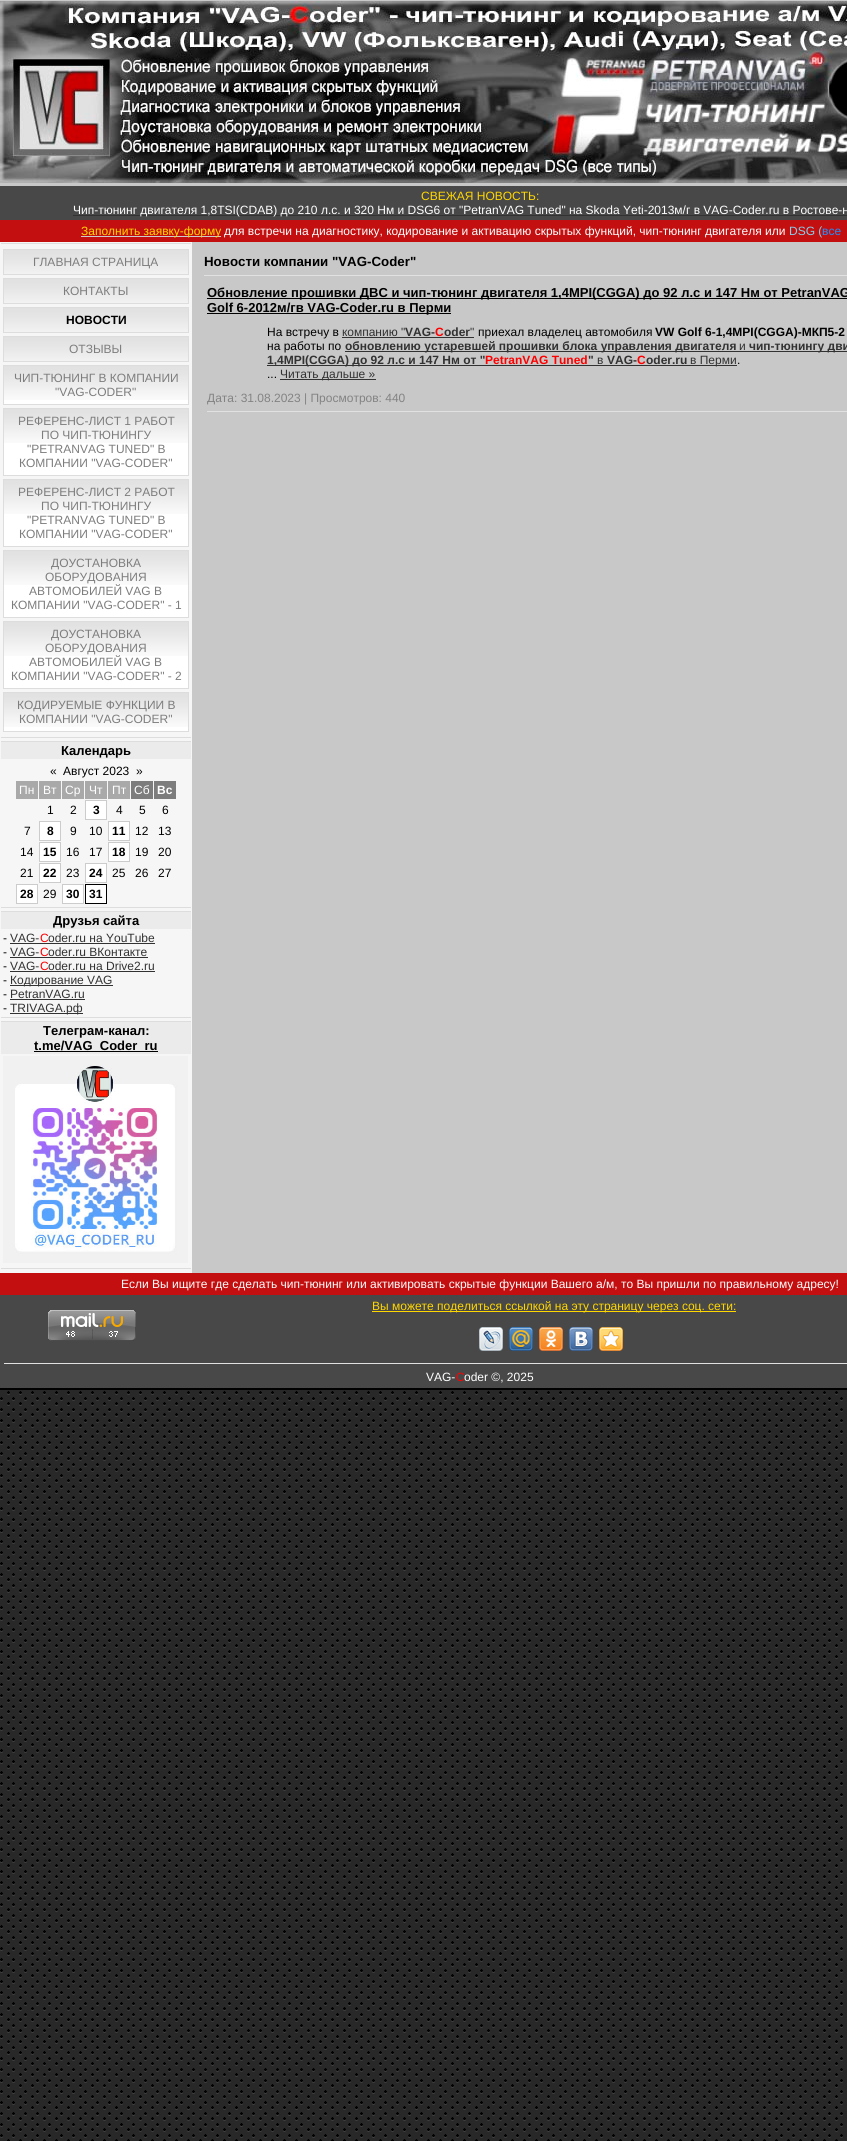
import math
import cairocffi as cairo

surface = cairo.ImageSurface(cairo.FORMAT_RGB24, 847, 2141)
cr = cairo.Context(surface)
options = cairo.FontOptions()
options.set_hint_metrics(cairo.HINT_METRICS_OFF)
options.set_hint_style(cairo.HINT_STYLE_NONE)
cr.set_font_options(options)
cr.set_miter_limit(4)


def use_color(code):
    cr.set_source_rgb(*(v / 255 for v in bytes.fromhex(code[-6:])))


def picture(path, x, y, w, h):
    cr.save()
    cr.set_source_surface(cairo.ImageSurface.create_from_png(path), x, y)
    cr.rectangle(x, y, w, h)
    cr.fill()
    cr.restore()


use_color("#ffffff")
cr.paint()
picture("img1.png", 0, 1390, 847, 751)
use_color("#c8c8c8")
cr.rectangle(0, 0, 847, 1273)
cr.fill()
picture("img2.png", 0, 1, 847, 182)
use_color("#484848")
cr.rectangle(0, 186, 847, 34)
cr.fill()
cr.select_font_face("Liberation Sans")
cr.set_font_size(12)
use_color("#ffd700")
cr.move_to(421, 200)
cr.show_text("СВЕЖАЯ НОВОСТЬ:")
use_color("#323232")
cr.rectangle(73, 215, 774, 1)
cr.fill()
use_color("#ffffff")
cr.move_to(73, 214)
cr.show_text("Чип-тюнинг двигателя 1,8TSI(CDAB) до 210 л.с. и 320 Нм и DSG6 от \"PetranVAG Tuned\" на Skoda Yeti-2013м/г в VAG-Coder.ru в Ростове-н")
use_color("#c30f0f")
cr.rectangle(0, 220, 847, 22)
cr.fill()
use_color("#cccccc")
cr.rectangle(81, 236, 140, 1)
cr.fill()
use_color("#ffd700")
cr.move_to(81, 235)
cr.show_text("Заполнить заявку-форму")
use_color("#ffffff")
cr.move_to(224, 235)
cr.show_text("для встречи на диагностику, кодирование и активацию скрытых функций, чип-тюнинг двигателя или")
use_color("#87ceeb")
cr.move_to(789, 235)
cr.show_text("DSG (")
use_color("#1e90ff")
cr.move_to(822, 235)
cr.show_text("все")
use_color("#f6f6f6")
cr.rectangle(0, 242, 192, 1031)
cr.fill()
use_color("#dddddd")
cr.rectangle(1, 243, 190, 1)
cr.fill()
cr.rectangle(1, 737, 190, 1)
cr.fill()
picture("img3.png", 4, 250, 184, 24)
cr.rectangle(3.5, 249.5, 185, 25)
cr.set_line_width(1)
cr.stroke()
use_color("#7d7d7d")
cr.move_to(33, 266)
cr.show_text("ГЛАВНАЯ СТРАНИЦА")
picture("img3.png", 4, 279, 184, 24)
cr.rectangle(3.5, 278.5, 185, 25)
use_color("#dddddd")
cr.stroke()
use_color("#7d7d7d")
cr.move_to(63, 295)
cr.show_text("КОНТАКТЫ")
picture("img3.png", 4, 308, 184, 24)
cr.rectangle(3.5, 307.5, 185, 25)
use_color("#dddddd")
cr.stroke()
cr.select_font_face("Liberation Sans", cairo.FONT_SLANT_NORMAL, cairo.FONT_WEIGHT_BOLD)
use_color("#000000")
cr.move_to(66, 324)
cr.show_text("НОВОСТИ")
picture("img3.png", 4, 337, 184, 24)
cr.rectangle(3.5, 336.5, 185, 25)
use_color("#dddddd")
cr.stroke()
cr.select_font_face("Liberation Sans")
use_color("#7d7d7d")
cr.move_to(69, 353)
cr.show_text("ОТЗЫВЫ")
use_color("#ffffff")
cr.rectangle(4, 400, 184, 4)
cr.fill()
picture("img4.png", 4, 366, 184, 34)
cr.rectangle(3.5, 365.5, 185, 39)
use_color("#dddddd")
cr.stroke()
use_color("#7d7d7d")
cr.move_to(14, 382)
cr.show_text("ЧИП-ТЮНИНГ В КОМПАНИИ")
cr.move_to(55, 396)
cr.show_text("\"VAG-CODER\"")
use_color("#ffffff")
cr.rectangle(4, 443, 184, 32)
cr.fill()
picture("img4.png", 4, 409, 184, 34)
cr.rectangle(3.5, 408.5, 185, 67)
use_color("#dddddd")
cr.stroke()
use_color("#7d7d7d")
cr.move_to(18, 425)
cr.show_text("РЕФЕРЕНС-ЛИСТ 1 РАБОТ")
cr.move_to(41, 439)
cr.show_text("ПО ЧИП-ТЮНИНГУ")
cr.move_to(27, 453)
cr.show_text("\"PETRANVAG TUNED\" В")
cr.move_to(19, 467)
cr.show_text("КОМПАНИИ \"VAG-CODER\"")
use_color("#ffffff")
cr.rectangle(4, 514, 184, 32)
cr.fill()
picture("img4.png", 4, 480, 184, 34)
cr.rectangle(3.5, 479.5, 185, 67)
use_color("#dddddd")
cr.stroke()
use_color("#7d7d7d")
cr.move_to(18, 496)
cr.show_text("РЕФЕРЕНС-ЛИСТ 2 РАБОТ")
cr.move_to(41, 510)
cr.show_text("ПО ЧИП-ТЮНИНГУ")
cr.move_to(27, 524)
cr.show_text("\"PETRANVAG TUNED\" В")
cr.move_to(19, 538)
cr.show_text("КОМПАНИИ \"VAG-CODER\"")
use_color("#ffffff")
cr.rectangle(4, 585, 184, 32)
cr.fill()
picture("img4.png", 4, 551, 184, 34)
cr.rectangle(3.5, 550.5, 185, 67)
use_color("#dddddd")
cr.stroke()
use_color("#7d7d7d")
cr.move_to(51, 567)
cr.show_text("ДОУСТАНОВКА")
cr.move_to(45, 581)
cr.show_text("ОБОРУДОВАНИЯ")
cr.move_to(29, 595)
cr.show_text("АВТОМОБИЛЕЙ VAG В")
cr.move_to(11, 609)
cr.show_text("КОМПАНИИ \"VAG-CODER\" - 1")
use_color("#ffffff")
cr.rectangle(4, 656, 184, 32)
cr.fill()
picture("img4.png", 4, 622, 184, 34)
cr.rectangle(3.5, 621.5, 185, 67)
use_color("#dddddd")
cr.stroke()
use_color("#7d7d7d")
cr.move_to(51, 638)
cr.show_text("ДОУСТАНОВКА")
cr.move_to(45, 652)
cr.show_text("ОБОРУДОВАНИЯ")
cr.move_to(29, 666)
cr.show_text("АВТОМОБИЛЕЙ VAG В")
cr.move_to(11, 680)
cr.show_text("КОМПАНИИ \"VAG-CODER\" - 2")
use_color("#ffffff")
cr.rectangle(4, 727, 184, 4)
cr.fill()
picture("img4.png", 4, 693, 184, 34)
cr.rectangle(3.5, 692.5, 185, 39)
use_color("#dddddd")
cr.stroke()
use_color("#7d7d7d")
cr.move_to(17, 709)
cr.show_text("КОДИРУЕМЫЕ ФУНКЦИИ В")
cr.move_to(19, 723)
cr.show_text("КОМПАНИИ \"VAG-CODER\"")
use_color("#dddddd")
cr.rectangle(1, 741, 190, 1)
cr.fill()
cr.rectangle(1, 907, 190, 1)
cr.fill()
use_color("#ebebeb")
cr.rectangle(1, 742, 190, 17)
cr.fill()
cr.select_font_face("Liberation Sans", cairo.FONT_SLANT_NORMAL, cairo.FONT_WEIGHT_BOLD)
cr.set_font_size(13)
use_color("#000000")
cr.move_to(61, 755)
cr.show_text("Календарь")
cr.select_font_face("Liberation Sans")
cr.set_font_size(12)
cr.move_to(50, 775)
cr.show_text("«")
cr.move_to(63, 775)
cr.show_text("Август 2023")
cr.move_to(136, 775)
cr.show_text("»")
use_color("#a9a9a9")
cr.rectangle(16, 781, 22, 18)
cr.fill()
use_color("#ffffff")
cr.move_to(19, 794)
cr.show_text("Пн")
use_color("#a9a9a9")
cr.rectangle(39, 781, 22, 18)
cr.fill()
use_color("#ffffff")
cr.move_to(43, 794)
cr.show_text("Вт")
use_color("#a9a9a9")
cr.rectangle(62, 781, 22, 18)
cr.fill()
use_color("#ffffff")
cr.move_to(65, 794)
cr.show_text("Ср")
use_color("#a9a9a9")
cr.rectangle(85, 781, 22, 18)
cr.fill()
use_color("#ffffff")
cr.move_to(89, 794)
cr.show_text("Чт")
use_color("#a9a9a9")
cr.rectangle(108, 781, 22, 18)
cr.fill()
use_color("#ffffff")
cr.move_to(112, 794)
cr.show_text("Пт")
use_color("#7d7d7d")
cr.rectangle(131, 781, 22, 18)
cr.fill()
use_color("#ffffff")
cr.move_to(134, 794)
cr.show_text("Сб")
use_color("#7d7d7d")
cr.rectangle(154, 781, 22, 18)
cr.fill()
cr.select_font_face("Liberation Sans", cairo.FONT_SLANT_NORMAL, cairo.FONT_WEIGHT_BOLD)
use_color("#ffffff")
cr.move_to(157, 794)
cr.show_text("Вс")
cr.select_font_face("Liberation Sans")
use_color("#000000")
cr.move_to(47, 814)
cr.show_text("1")
cr.move_to(70, 814)
cr.show_text("2")
use_color("#ffffff")
cr.rectangle(85.5, 800.5, 21, 19)
cr.fill_preserve()
use_color("#cccccc")
cr.stroke()
cr.select_font_face("Liberation Sans", cairo.FONT_SLANT_NORMAL, cairo.FONT_WEIGHT_BOLD)
use_color("#000000")
cr.move_to(93, 814)
cr.show_text("3")
cr.select_font_face("Liberation Sans")
cr.move_to(116, 814)
cr.show_text("4")
cr.move_to(139, 814)
cr.show_text("5")
cr.move_to(162, 814)
cr.show_text("6")
cr.move_to(24, 835)
cr.show_text("7")
use_color("#ffffff")
cr.rectangle(39.5, 821.5, 21, 19)
cr.fill_preserve()
use_color("#cccccc")
cr.stroke()
cr.select_font_face("Liberation Sans", cairo.FONT_SLANT_NORMAL, cairo.FONT_WEIGHT_BOLD)
use_color("#000000")
cr.move_to(47, 835)
cr.show_text("8")
cr.select_font_face("Liberation Sans")
cr.move_to(70, 835)
cr.show_text("9")
cr.move_to(89, 835)
cr.show_text("10")
use_color("#ffffff")
cr.rectangle(108.5, 821.5, 21, 19)
cr.fill_preserve()
use_color("#cccccc")
cr.stroke()
cr.select_font_face("Liberation Sans", cairo.FONT_SLANT_NORMAL, cairo.FONT_WEIGHT_BOLD)
use_color("#000000")
cr.move_to(112, 835)
cr.show_text("11")
cr.select_font_face("Liberation Sans")
cr.move_to(135, 835)
cr.show_text("12")
cr.move_to(158, 835)
cr.show_text("13")
cr.move_to(20, 856)
cr.show_text("14")
use_color("#ffffff")
cr.rectangle(39.5, 842.5, 21, 19)
cr.fill_preserve()
use_color("#cccccc")
cr.stroke()
cr.select_font_face("Liberation Sans", cairo.FONT_SLANT_NORMAL, cairo.FONT_WEIGHT_BOLD)
use_color("#000000")
cr.move_to(43, 856)
cr.show_text("15")
cr.select_font_face("Liberation Sans")
cr.move_to(66, 856)
cr.show_text("16")
cr.move_to(89, 856)
cr.show_text("17")
use_color("#ffffff")
cr.rectangle(108.5, 842.5, 21, 19)
cr.fill_preserve()
use_color("#cccccc")
cr.stroke()
cr.select_font_face("Liberation Sans", cairo.FONT_SLANT_NORMAL, cairo.FONT_WEIGHT_BOLD)
use_color("#000000")
cr.move_to(112, 856)
cr.show_text("18")
cr.select_font_face("Liberation Sans")
cr.move_to(135, 856)
cr.show_text("19")
cr.move_to(158, 856)
cr.show_text("20")
cr.move_to(20, 877)
cr.show_text("21")
use_color("#ffffff")
cr.rectangle(39.5, 863.5, 21, 19)
cr.fill_preserve()
use_color("#cccccc")
cr.stroke()
cr.select_font_face("Liberation Sans", cairo.FONT_SLANT_NORMAL, cairo.FONT_WEIGHT_BOLD)
use_color("#000000")
cr.move_to(43, 877)
cr.show_text("22")
cr.select_font_face("Liberation Sans")
cr.move_to(66, 877)
cr.show_text("23")
use_color("#ffffff")
cr.rectangle(85.5, 863.5, 21, 19)
cr.fill_preserve()
use_color("#cccccc")
cr.stroke()
cr.select_font_face("Liberation Sans", cairo.FONT_SLANT_NORMAL, cairo.FONT_WEIGHT_BOLD)
use_color("#000000")
cr.move_to(89, 877)
cr.show_text("24")
cr.select_font_face("Liberation Sans")
cr.move_to(112, 877)
cr.show_text("25")
cr.move_to(135, 877)
cr.show_text("26")
cr.move_to(158, 877)
cr.show_text("27")
use_color("#ffffff")
cr.rectangle(16.5, 884.5, 21, 19)
cr.fill_preserve()
use_color("#cccccc")
cr.stroke()
cr.select_font_face("Liberation Sans", cairo.FONT_SLANT_NORMAL, cairo.FONT_WEIGHT_BOLD)
use_color("#000000")
cr.move_to(20, 898)
cr.show_text("28")
cr.select_font_face("Liberation Sans")
cr.move_to(43, 898)
cr.show_text("29")
use_color("#ffffff")
cr.rectangle(62.5, 884.5, 21, 19)
cr.fill_preserve()
use_color("#cccccc")
cr.stroke()
cr.select_font_face("Liberation Sans", cairo.FONT_SLANT_NORMAL, cairo.FONT_WEIGHT_BOLD)
use_color("#000000")
cr.move_to(66, 898)
cr.show_text("30")
use_color("#ffffff")
cr.rectangle(85.5, 884.5, 21, 19)
cr.fill_preserve()
use_color("#000000")
cr.stroke()
cr.move_to(89, 898)
cr.show_text("31")
use_color("#dddddd")
cr.rectangle(1, 911, 190, 1)
cr.fill()
cr.rectangle(1, 1017, 190, 1)
cr.fill()
use_color("#ebebeb")
cr.rectangle(1, 912, 190, 17)
cr.fill()
cr.set_font_size(13)
use_color("#000000")
cr.move_to(53, 925)
cr.show_text("Друзья сайта")
cr.select_font_face("Liberation Sans")
cr.set_font_size(12)
cr.move_to(3, 942)
cr.show_text("-")
use_color("#323232")
cr.move_to(10, 942)
cr.show_text("VAG-")
cr.rectangle(10, 943, 145, 1)
cr.fill()
use_color("#ff0000")
cr.move_to(40, 942)
cr.show_text("C")
use_color("#323232")
cr.move_to(48, 942)
cr.show_text("oder.ru на YouTube")
use_color("#000000")
cr.move_to(3, 956)
cr.show_text("-")
use_color("#323232")
cr.move_to(10, 956)
cr.show_text("VAG-")
cr.rectangle(10, 957, 138, 1)
cr.fill()
use_color("#ff0000")
cr.move_to(40, 956)
cr.show_text("C")
use_color("#323232")
cr.move_to(48, 956)
cr.show_text("oder.ru ВКонтакте")
use_color("#000000")
cr.move_to(3, 970)
cr.show_text("-")
use_color("#323232")
cr.move_to(10, 970)
cr.show_text("VAG-")
cr.rectangle(10, 971, 145, 1)
cr.fill()
use_color("#ff0000")
cr.move_to(40, 970)
cr.show_text("C")
use_color("#323232")
cr.move_to(48, 970)
cr.show_text("oder.ru на Drive2.ru")
use_color("#000000")
cr.move_to(3, 984)
cr.show_text("-")
use_color("#323232")
cr.rectangle(10, 985, 103, 1)
cr.fill()
cr.move_to(10, 984)
cr.show_text("Кодирование VAG")
use_color("#000000")
cr.move_to(3, 998)
cr.show_text("-")
use_color("#323232")
cr.move_to(10, 998)
cr.show_text("PetranVAG.ru")
cr.rectangle(10, 999, 75, 1)
cr.fill()
use_color("#000000")
cr.move_to(3, 1012)
cr.show_text("-")
use_color("#323232")
cr.rectangle(10, 1013, 73, 1)
cr.fill()
cr.move_to(10, 1012)
cr.show_text("TRIVAGA.рф")
use_color("#dddddd")
cr.rectangle(1, 1021, 190, 1)
cr.fill()
cr.rectangle(1, 1268, 190, 1)
cr.fill()
use_color("#ebebeb")
cr.rectangle(1, 1022, 190, 32)
cr.fill()
cr.select_font_face("Liberation Sans", cairo.FONT_SLANT_NORMAL, cairo.FONT_WEIGHT_BOLD)
cr.set_font_size(13)
use_color("#000000")
cr.move_to(43, 1035)
cr.show_text("Телеграм-канал:")
cr.rectangle(34, 1051, 124, 1)
cr.fill()
cr.move_to(34, 1050)
cr.show_text("t.me/VAG_Coder_ru")
picture("img5.png", 3, 1056, 185, 207)
cr.set_font_size(13.3)
cr.move_to(204, 266)
cr.show_text("Новости компании \"VAG-Coder\"")
use_color("#e1e1e1")
cr.rectangle(204, 275, 643, 1)
cr.fill()
use_color("#000000")
cr.rectangle(207, 298, 640, 1)
cr.fill()
cr.set_font_size(13)
cr.move_to(207, 297)
cr.show_text("Обновление прошивки ДВС и чип-тюнинг двигателя 1,4MPI(CGGA) до 92 л.с и 147 Нм от PetranVAG")
cr.rectangle(207, 313, 244, 1)
cr.fill()
cr.move_to(207, 312)
cr.show_text("Golf 6-2012м/гв VAG-Coder.ru в Перми")
cr.select_font_face("Liberation Sans")
cr.set_font_size(12)
cr.move_to(267, 336)
cr.show_text("На встречу в")
use_color("#323232")
cr.move_to(342, 336)
cr.show_text("компанию \"")
cr.rectangle(342, 337, 132, 1)
cr.fill()
cr.select_font_face("Liberation Sans", cairo.FONT_SLANT_NORMAL, cairo.FONT_WEIGHT_BOLD)
cr.move_to(405, 336)
cr.show_text("VAG-")
use_color("#ff0000")
cr.move_to(435, 336)
cr.show_text("C")
use_color("#323232")
cr.move_to(444, 336)
cr.show_text("oder")
cr.select_font_face("Liberation Sans")
cr.move_to(470, 336)
cr.show_text("\"")
use_color("#000000")
cr.move_to(478, 336)
cr.show_text("приехал владелец автомобиля")
cr.select_font_face("Liberation Sans", cairo.FONT_SLANT_NORMAL, cairo.FONT_WEIGHT_BOLD)
cr.move_to(655, 336)
cr.show_text("VW Golf 6-1,4MPI(CGGA)-МКП5-2")
cr.select_font_face("Liberation Sans")
cr.move_to(267, 350)
cr.show_text("на работы по")
use_color("#323232")
cr.rectangle(345, 351, 502, 1)
cr.fill()
cr.select_font_face("Liberation Sans", cairo.FONT_SLANT_NORMAL, cairo.FONT_WEIGHT_BOLD)
cr.move_to(345, 350)
cr.show_text("обновлению устаревшей прошивки блока управления двигателя")
cr.select_font_face("Liberation Sans")
cr.move_to(739, 350)
cr.show_text("и")
cr.select_font_face("Liberation Sans", cairo.FONT_SLANT_NORMAL, cairo.FONT_WEIGHT_BOLD)
cr.move_to(749, 350)
cr.show_text("чип-тюнингу дви")
cr.rectangle(267, 365, 470, 1)
cr.fill()
cr.move_to(267, 364)
cr.show_text("1,4MPI(CGGA) до 92 л.с и 147 Нм от \"")
use_color("#ff0000")
cr.move_to(485, 364)
cr.show_text("PetranVAG Tuned")
use_color("#323232")
cr.move_to(588, 364)
cr.show_text("\"")
cr.select_font_face("Liberation Sans")
cr.move_to(597, 364)
cr.show_text("в")
cr.select_font_face("Liberation Sans", cairo.FONT_SLANT_NORMAL, cairo.FONT_WEIGHT_BOLD)
cr.move_to(607, 364)
cr.show_text("VAG-")
use_color("#ff0000")
cr.move_to(637, 364)
cr.show_text("C")
use_color("#323232")
cr.move_to(646, 364)
cr.show_text("oder.ru")
cr.select_font_face("Liberation Sans")
cr.move_to(690, 364)
cr.show_text("в Перми")
use_color("#000000")
cr.move_to(737, 364)
cr.show_text(".")
cr.move_to(267, 378)
cr.show_text("...")
use_color("#323232")
cr.rectangle(280, 379, 96, 1)
cr.fill()
cr.move_to(280, 378)
cr.show_text("Читать дальше »")
use_color("#838383")
cr.move_to(207, 402)
cr.show_text("Дата: 31.08.2023 | Просмотров: 440")
use_color("#e1e1e1")
cr.rectangle(207, 411, 640, 1)
cr.fill()
use_color("#c30f0f")
cr.rectangle(0, 1273, 847, 22)
cr.fill()
use_color("#ffffff")
cr.move_to(121, 1288)
cr.show_text("Если Вы ищите где сделать чип-тюнинг или активировать скрытые функции Вашего а/м, то Вы пришли по правильному адресу!")
use_color("#484848")
cr.rectangle(0, 1295, 847, 93)
cr.fill()
use_color("#000000")
cr.rectangle(0, 1388, 847, 2)
cr.fill()
use_color("#ffd700")
cr.rectangle(372, 1311, 364, 1)
cr.fill()
cr.move_to(372, 1310)
cr.show_text("Вы можете поделиться ссылкой на эту страницу через соц. сети:")
picture("img6.png", 479, 1327, 24, 24)
picture("img7.png", 509, 1327, 24, 24)
picture("img8.png", 539, 1327, 24, 24)
picture("img9.png", 569, 1327, 24, 24)
picture("img10.png", 599, 1327, 24, 24)
picture("img11.png", 48, 1310, 88, 31)
use_color("#e1e1e1")
cr.rectangle(4, 1363, 843, 1)
cr.fill()
use_color("#ffffff")
cr.move_to(426, 1381)
cr.show_text("VAG-")
use_color("#ff0000")
cr.move_to(456, 1381)
cr.show_text("C")
use_color("#ffffff")
cr.move_to(464, 1381)
cr.show_text("oder ©, 2025")
surface.write_to_png("result.png")
